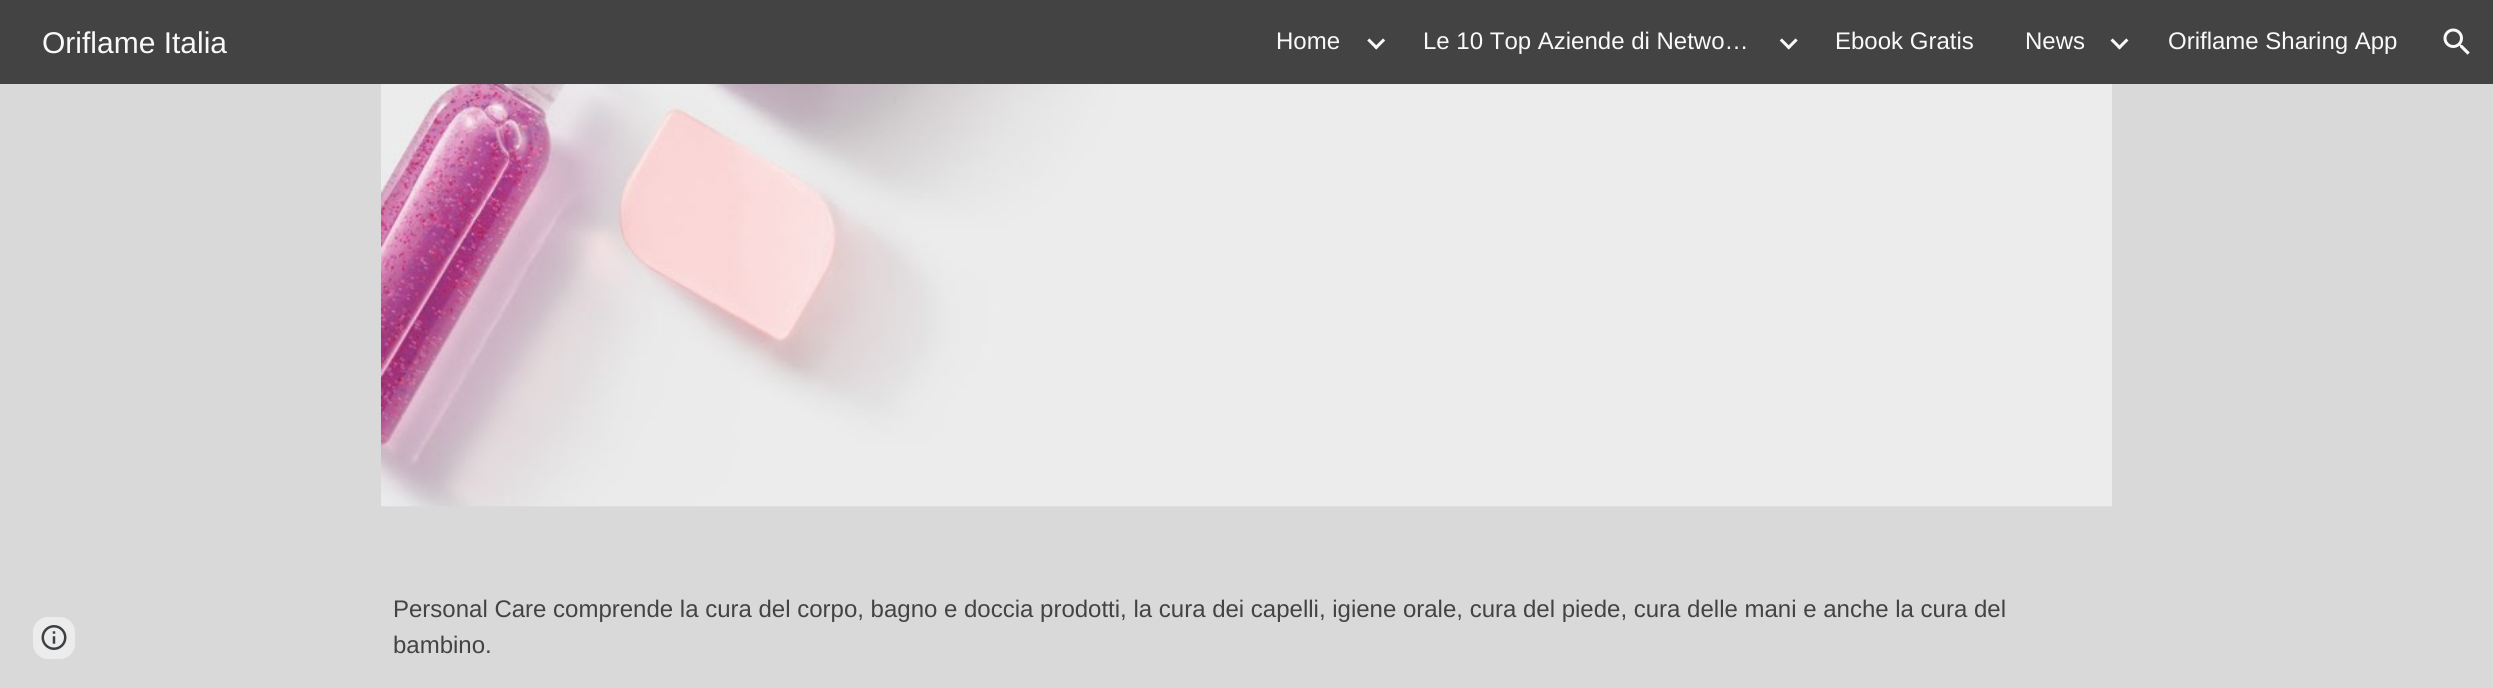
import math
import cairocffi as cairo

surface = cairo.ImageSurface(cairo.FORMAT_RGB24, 2493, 688)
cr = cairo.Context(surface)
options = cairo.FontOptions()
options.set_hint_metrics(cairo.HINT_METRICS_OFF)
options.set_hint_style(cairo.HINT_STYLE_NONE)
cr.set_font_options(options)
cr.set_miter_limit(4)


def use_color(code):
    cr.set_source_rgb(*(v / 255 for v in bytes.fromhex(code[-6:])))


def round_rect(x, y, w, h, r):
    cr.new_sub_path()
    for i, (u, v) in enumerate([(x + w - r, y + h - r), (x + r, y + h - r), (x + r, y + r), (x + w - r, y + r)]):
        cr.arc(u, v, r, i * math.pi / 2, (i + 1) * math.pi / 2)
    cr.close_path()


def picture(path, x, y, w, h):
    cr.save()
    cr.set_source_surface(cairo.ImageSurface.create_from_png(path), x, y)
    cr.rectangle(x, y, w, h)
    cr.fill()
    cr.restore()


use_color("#d9d9d9")
cr.paint()
use_color("#434343")
cr.rectangle(0, 0, 2493, 84)
cr.fill()
cr.select_font_face("Liberation Sans")
cr.set_font_size(30)
use_color("#f9f9f9")
cr.move_to(42, 53)
cr.show_text("Oriflame Italia")
cr.set_font_size(24)
cr.move_to(1276, 49)
cr.show_text("Home")
picture("img1.png", 1367, 38, 19, 12)
cr.move_to(1423, 49)
cr.show_text("Le 10 Top Aziende di Netwo…")
picture("img2.png", 1779, 38, 19, 12)
cr.move_to(1835, 49)
cr.show_text("Ebook Gratis")
cr.move_to(2025, 49)
cr.show_text("News")
picture("img3.png", 2110, 38, 19, 12)
cr.move_to(2168, 49)
cr.show_text("Oriflame Sharing App")
picture("img4.png", 2443, 28, 27, 27)
use_color("#ececec")
round_rect(33, 617, 42, 42, 15)
cr.fill()
picture("img5.png", 41, 625, 26, 25)
picture("img6.png", 381, 84, 1731, 423)
use_color("#434343")
cr.move_to(393, 617)
cr.show_text("Personal Care comprende la cura del corpo, bagno e doccia prodotti, la cura dei capelli, igiene orale, cura del piede, cura delle mani e anche la cura del")
cr.move_to(393, 653)
cr.show_text("bambino.")
surface.write_to_png("result.png")
